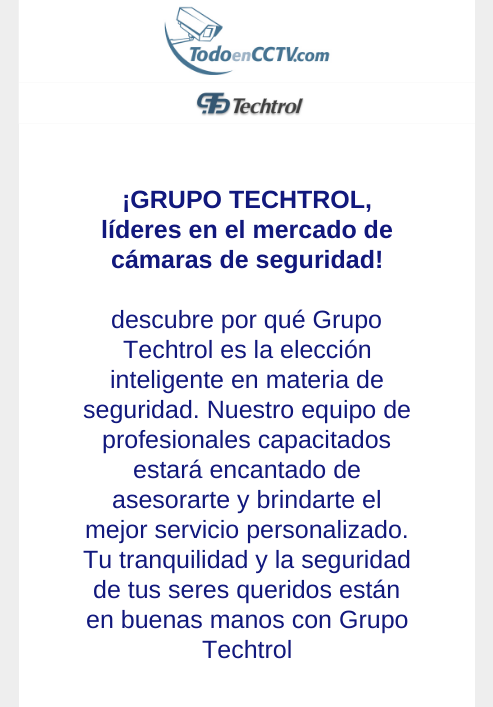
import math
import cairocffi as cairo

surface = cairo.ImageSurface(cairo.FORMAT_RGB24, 493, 707)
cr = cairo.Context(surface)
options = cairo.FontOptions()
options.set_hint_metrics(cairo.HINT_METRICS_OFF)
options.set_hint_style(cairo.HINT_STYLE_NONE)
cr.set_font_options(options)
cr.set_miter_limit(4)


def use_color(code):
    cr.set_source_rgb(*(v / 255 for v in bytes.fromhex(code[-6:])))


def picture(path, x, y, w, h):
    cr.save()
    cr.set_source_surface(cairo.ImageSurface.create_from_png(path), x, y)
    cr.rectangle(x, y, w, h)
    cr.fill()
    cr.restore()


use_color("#eeeeee")
cr.paint()
picture("img1.png", 18, 0, 457, 83)
picture("img2.png", 18, 82, 457, 42)
use_color("#ffffff")
cr.rectangle(19, 124, 456, 583)
cr.fill()
cr.select_font_face("Liberation Sans", cairo.FONT_SLANT_NORMAL, cairo.FONT_WEIGHT_BOLD)
cr.set_font_size(25)
use_color("#11187d")
cr.move_to(122, 208)
cr.show_text("¡GRUPO TECHTROL,")
cr.move_to(101, 238)
cr.show_text("líderes en el mercado de")
cr.move_to(111, 268)
cr.show_text("cámaras de seguridad!")
cr.select_font_face("Liberation Sans")
cr.move_to(111, 328)
cr.show_text("descubre por qué Grupo")
cr.move_to(123, 358)
cr.show_text("Techtrol es la elección")
cr.move_to(110, 388)
cr.show_text("inteligente en materia de")
cr.move_to(83, 418)
cr.show_text("seguridad. Nuestro equipo de")
cr.move_to(102, 448)
cr.show_text("profesionales capacitados")
cr.move_to(133, 478)
cr.show_text("estará encantado de")
cr.move_to(112, 508)
cr.show_text("asesorarte y brindarte el")
cr.move_to(85, 538)
cr.show_text("mejor servicio personalizado.")
cr.move_to(83, 568)
cr.show_text("Tu tranquilidad y la seguridad")
cr.move_to(93, 598)
cr.show_text("de tus seres queridos están")
cr.move_to(86, 628)
cr.show_text("en buenas manos con Grupo")
cr.move_to(202, 658)
cr.show_text("Techtrol")
surface.write_to_png("result.png")
